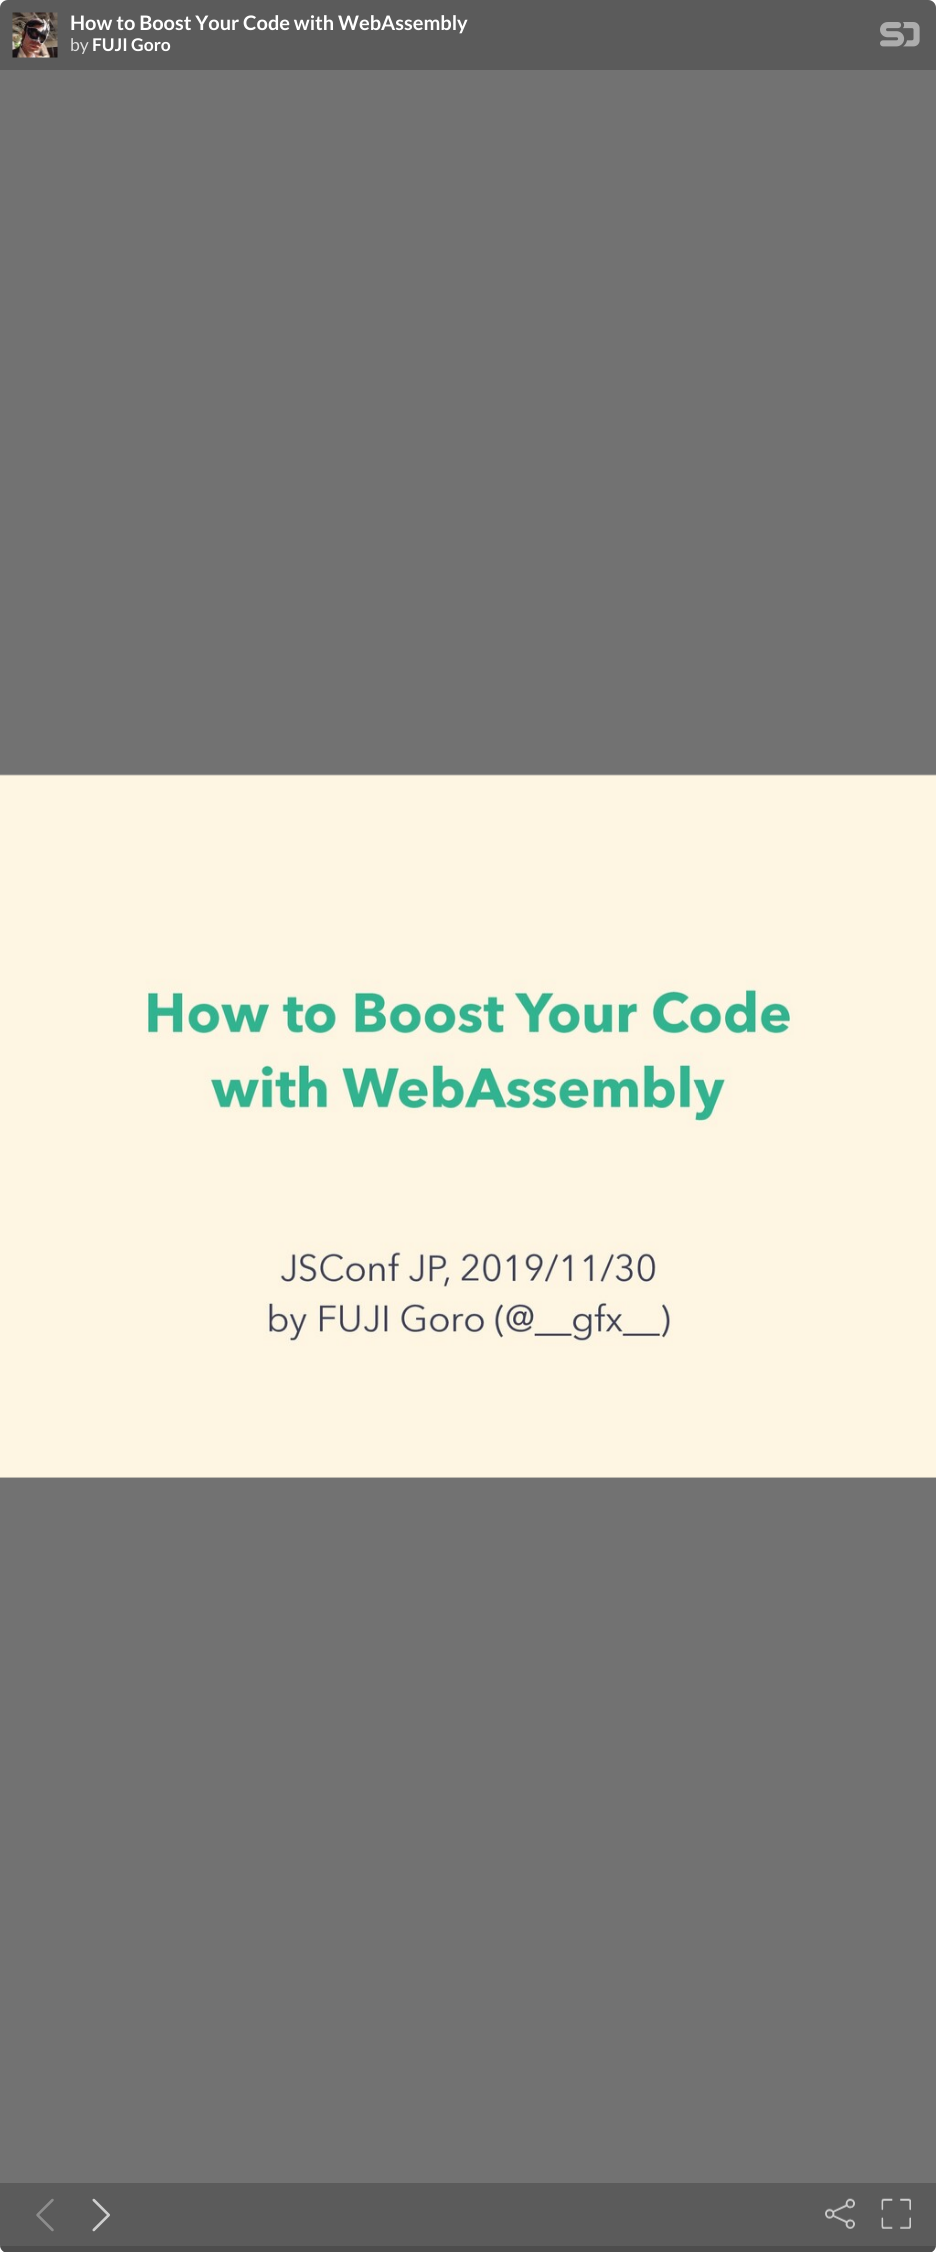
import math
import cairocffi as cairo

surface = cairo.ImageSurface(cairo.FORMAT_RGB24, 936, 2252)
cr = cairo.Context(surface)
options = cairo.FontOptions()
options.set_hint_metrics(cairo.HINT_METRICS_OFF)
options.set_hint_style(cairo.HINT_STYLE_NONE)
cr.set_font_options(options)
cr.set_miter_limit(4)


def use_color(code):
    cr.set_source_rgb(*(v / 255 for v in bytes.fromhex(code[-6:])))


def round_rect(x, y, w, h, r):
    cr.new_sub_path()
    for i, (u, v) in enumerate([(x + w - r, y + h - r), (x + r, y + h - r), (x + r, y + r), (x + w - r, y + r)]):
        cr.arc(u, v, r, i * math.pi / 2, (i + 1) * math.pi / 2)
    cr.close_path()


def picture(path, x, y, w, h):
    cr.save()
    cr.set_source_surface(cairo.ImageSurface.create_from_png(path), x, y)
    cr.rectangle(x, y, w, h)
    cr.fill()
    cr.restore()


use_color("#ffffff")
cr.paint()
use_color("#727272")
round_rect(0, 0, 936, 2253, 8)
cr.fill()
picture("img1.png", 0, 774, 936, 704)
cr.set_source_rgba(0, 0, 0, 0.2)
cr.new_path()
cr.move_to(8, 0)
cr.line_to(928, 0)
cr.curve_to(932.5, 0, 936, 3.5, 936, 8)
cr.line_to(936, 70)
cr.line_to(0, 70)
cr.line_to(0, 8)
cr.curve_to(0, 3.5, 3.5, 0, 8, 0)
cr.close_path()
cr.fill()
picture("img2.png", 12, 12, 46, 46)
cr.select_font_face("Lato", cairo.FONT_SLANT_NORMAL, cairo.FONT_WEIGHT_BOLD)
cr.set_font_size(20)
use_color("#ffffff")
cr.move_to(70, 30)
cr.show_text("How to Boost Your Code with WebAssembly")
picture("img3.png", 880, 22, 40, 25)
cr.select_font_face("Lato")
cr.set_font_size(17.5)
use_color("#dedede")
cr.move_to(70, 51)
cr.show_text("by")
cr.select_font_face("Lato", cairo.FONT_SLANT_NORMAL, cairo.FONT_WEIGHT_BOLD)
use_color("#ffffff")
cr.move_to(92, 51)
cr.show_text("FUJI Goro")
cr.set_source_rgba(0, 0, 0, 0.2)
cr.new_path()
cr.move_to(0, 2183)
cr.line_to(936, 2183)
cr.line_to(936, 2245)
cr.curve_to(936, 2249.5, 932.5, 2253, 928, 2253)
cr.line_to(8, 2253)
cr.curve_to(3.5, 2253, 0, 2249.5, 0, 2245)
cr.close_path()
cr.fill()
picture("img4.png", 36, 2198, 18, 34)
picture("img5.png", 92, 2198, 18, 34)
picture("img6.png", 825, 2198, 30, 31)
picture("img7.png", 881, 2198, 30, 31)
cr.save()
round_rect(0, 0, 936, 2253, 8)
cr.clip()
cr.set_source_rgba(0, 0, 0, 0.15)
cr.rectangle(0, 2246, 936, 6)
cr.fill()
cr.restore()
surface.write_to_png("result.png")
